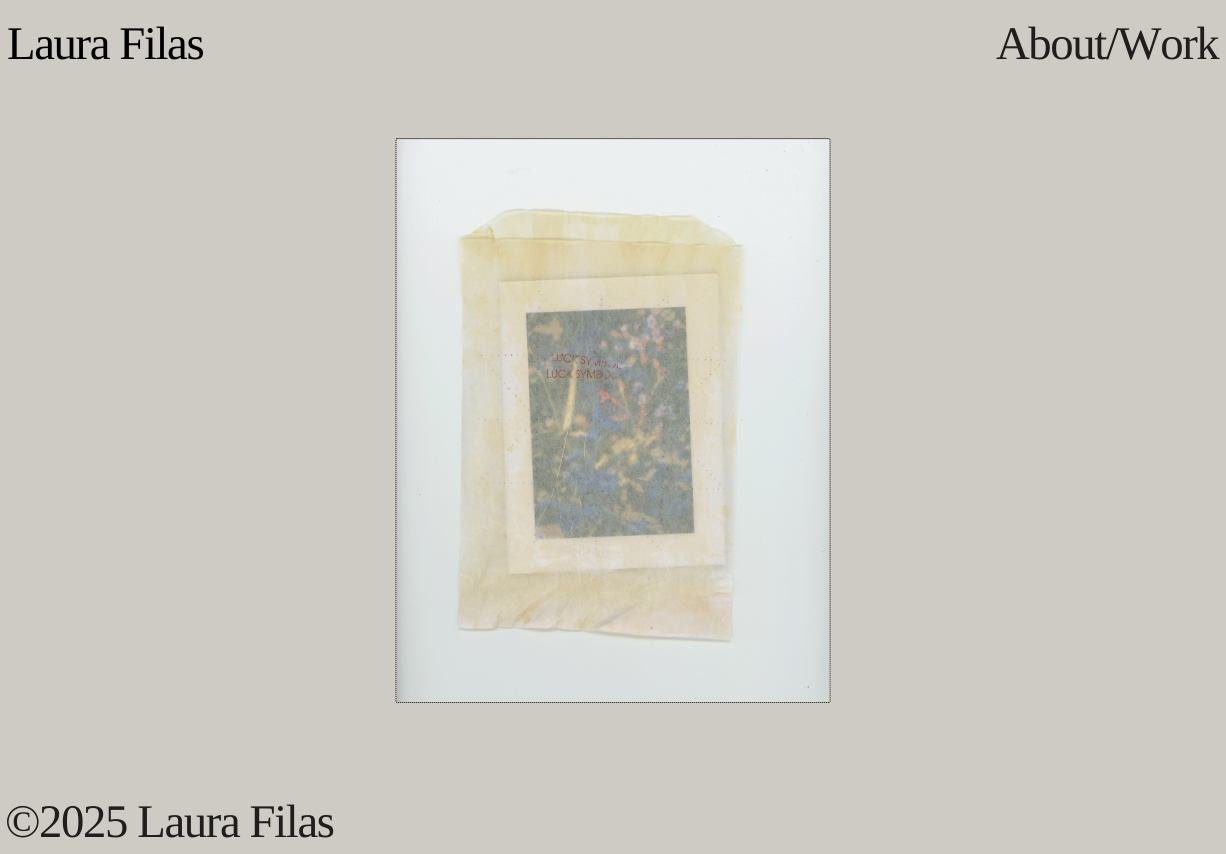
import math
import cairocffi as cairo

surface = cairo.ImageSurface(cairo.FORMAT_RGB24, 1226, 854)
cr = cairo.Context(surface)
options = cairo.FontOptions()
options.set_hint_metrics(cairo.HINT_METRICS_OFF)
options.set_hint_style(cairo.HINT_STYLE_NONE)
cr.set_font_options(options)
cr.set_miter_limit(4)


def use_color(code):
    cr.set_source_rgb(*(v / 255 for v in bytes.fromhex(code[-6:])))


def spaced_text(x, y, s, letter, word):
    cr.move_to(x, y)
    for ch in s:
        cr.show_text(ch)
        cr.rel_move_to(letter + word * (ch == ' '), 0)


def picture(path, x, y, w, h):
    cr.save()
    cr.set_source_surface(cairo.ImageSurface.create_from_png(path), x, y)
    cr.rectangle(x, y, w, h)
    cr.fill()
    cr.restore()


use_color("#cecbc4")
cr.paint()
cr.select_font_face("Liberation Serif")
cr.set_font_size(46.75)
use_color("#000000")
spaced_text(7, 59, "Laura Filas", -1.4, 0)
use_color("#1f1e1d")
spaced_text(996, 59, "About/Work", -1.4, 0)
cr.new_path()
cr.move_to(397.5, 138.5)
cr.line_to(828.5, 138.5)
cr.curve_to(829.5, 138.5, 830, 139.5, 830, 140)
cr.line_to(830, 701)
cr.curve_to(830, 702, 829.5, 702.5, 828.5, 702.5)
cr.line_to(397.5, 702.5)
cr.curve_to(396.5, 702.5, 396, 702, 396, 701)
cr.line_to(396, 140)
cr.curve_to(396, 139.5, 396.5, 138.5, 397.5, 138.5)
cr.close_path()
use_color("#000000")
cr.set_line_width(1)
cr.set_dash([1, 1])
cr.stroke()
picture("img1.png", 396, 139, 434, 564)
use_color("#1f1e1d")
spaced_text(5, 837, "©2025 Laura Filas", -1.4, 0)
surface.write_to_png("result.png")
